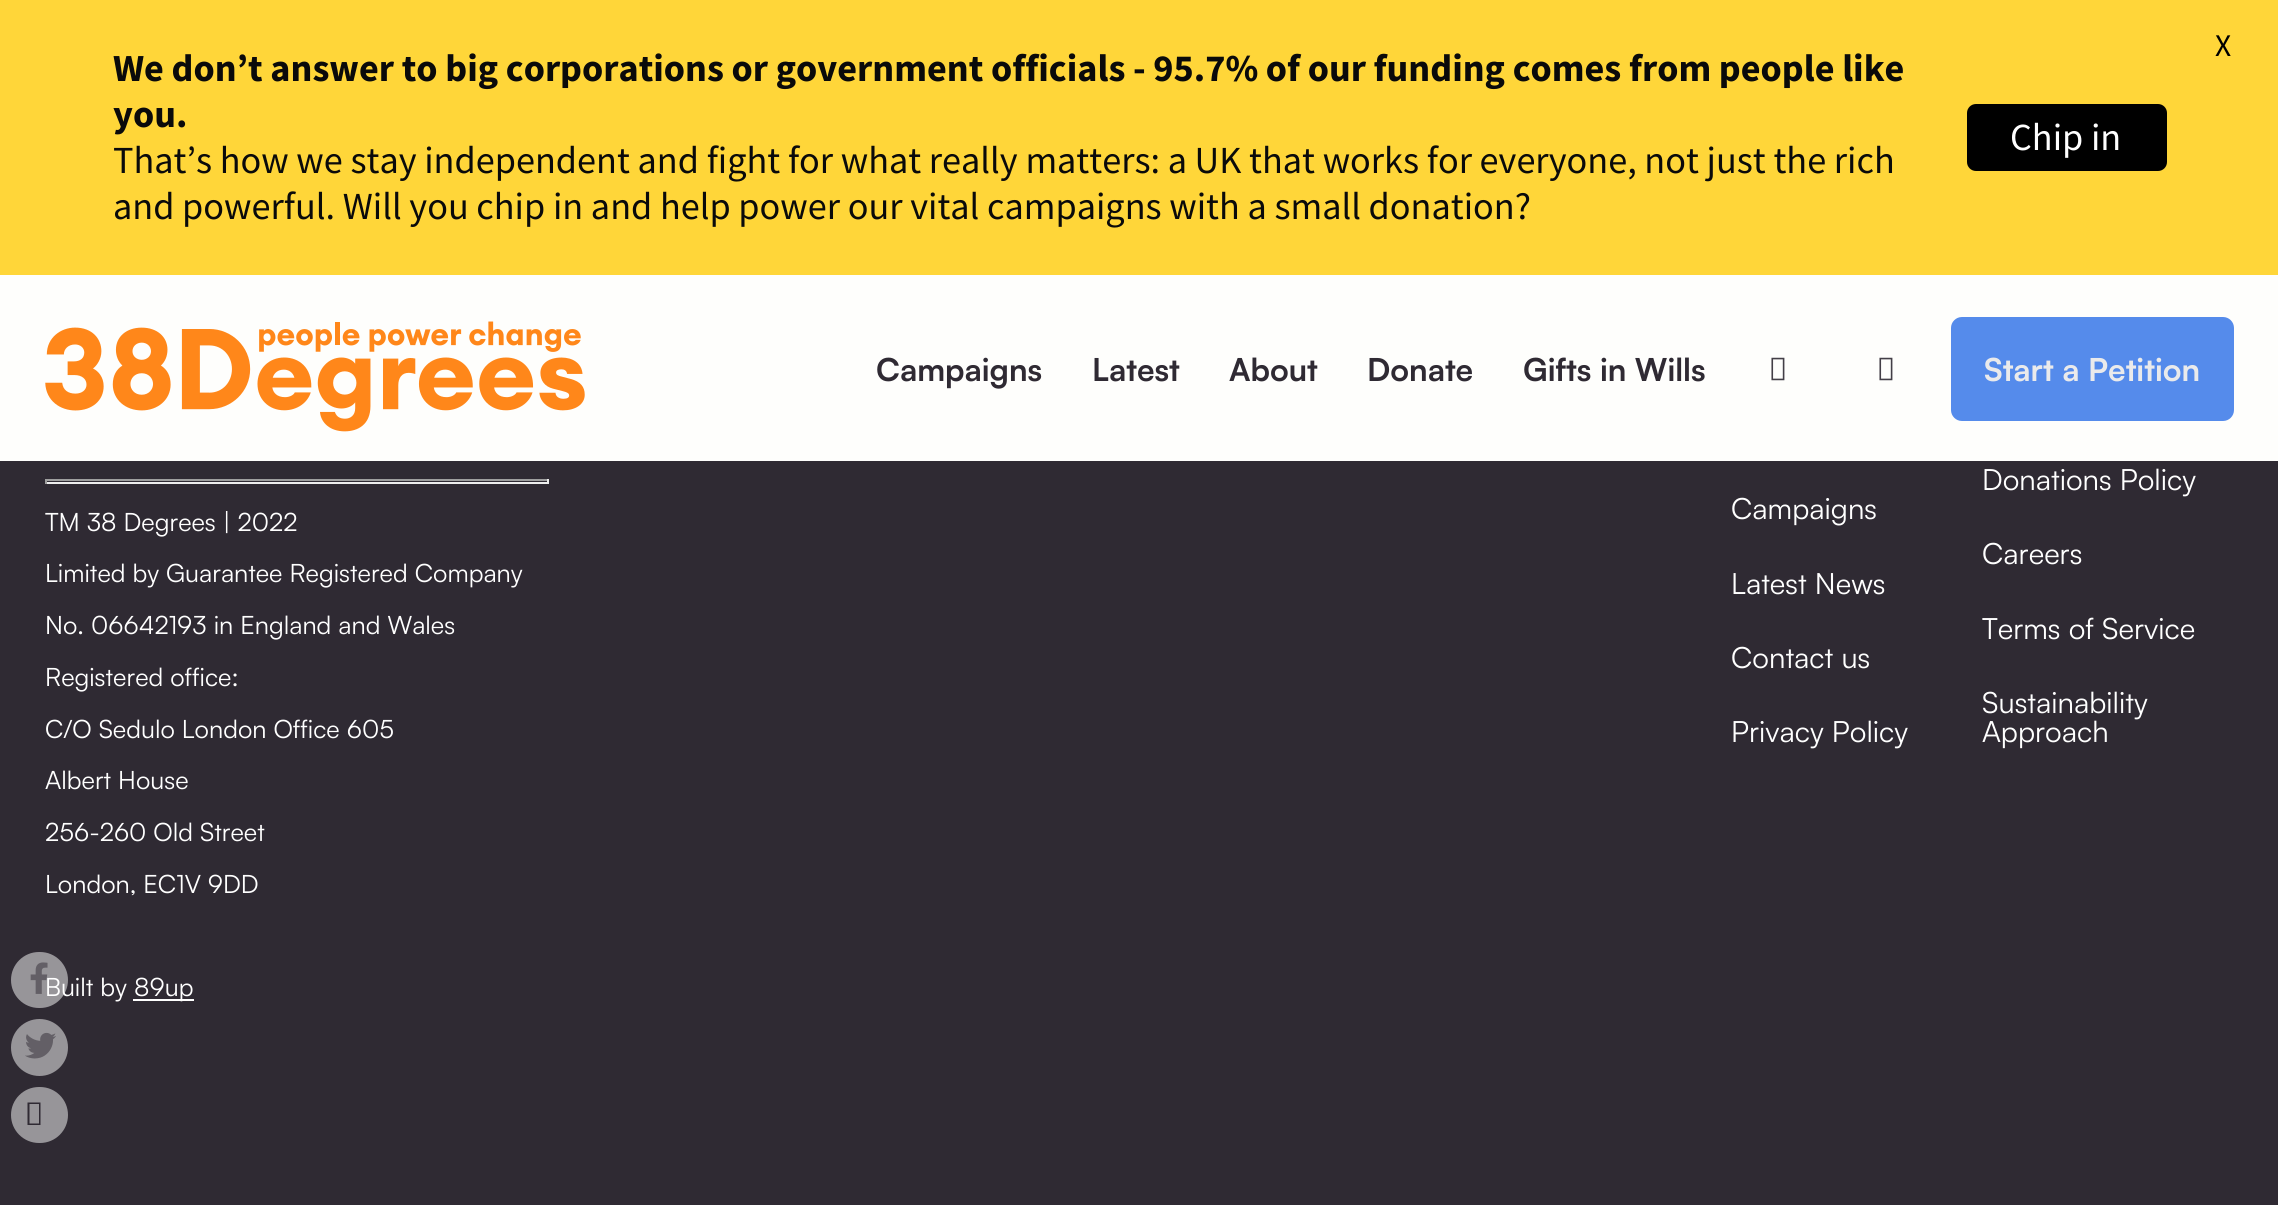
import math
import cairocffi as cairo

surface = cairo.ImageSurface(cairo.FORMAT_RGB24, 2278, 1205)
cr = cairo.Context(surface)
options = cairo.FontOptions()
options.set_hint_metrics(cairo.HINT_METRICS_OFF)
options.set_hint_style(cairo.HINT_STYLE_NONE)
cr.set_font_options(options)
cr.set_miter_limit(4)


def use_color(code):
    cr.set_source_rgb(*(v / 255 for v in bytes.fromhex(code[-6:])))


def round_rect(x, y, w, h, r):
    cr.new_sub_path()
    for i, (u, v) in enumerate([(x + w - r, y + h - r), (x + r, y + h - r), (x + r, y + r), (x + w - r, y + r)]):
        cr.arc(u, v, r, i * math.pi / 2, (i + 1) * math.pi / 2)
    cr.close_path()


def picture(path, x, y, w, h):
    cr.save()
    cr.set_source_surface(cairo.ImageSurface.create_from_png(path), x, y)
    cr.rectangle(x, y, w, h)
    cr.fill()
    cr.restore()


use_color("#2f2a33")
cr.paint()
use_color("#ffd639")
cr.rectangle(0, 0, 2278, 275)
cr.fill()
cr.select_font_face("Source Sans Pro")
cr.set_font_size(31.5)
use_color("#000000")
cr.move_to(2215, 56)
cr.show_text("X")
cr.select_font_face("Source Sans Pro", cairo.FONT_SLANT_NORMAL, cairo.FONT_WEIGHT_BOLD)
cr.set_font_size(38.25)
use_color("#0a0a0a")
cr.move_to(113, 81)
cr.show_text("We don’t answer to big corporations or government officials - 95.7% of our funding comes from people like")
cr.move_to(113, 127)
cr.show_text("you.")
cr.select_font_face("Source Sans Pro")
cr.move_to(113, 173)
cr.show_text("That’s how we stay independent and fight for what really matters: a UK that works for everyone, not just the rich")
cr.move_to(113, 219)
cr.show_text("and powerful. Will you chip in and help power our vital campaigns with a small donation?")
use_color("#000000")
round_rect(1967, 104, 200, 67, 9)
cr.fill()
use_color("#ffffff")
cr.move_to(2010, 150)
cr.show_text("Chip in")
use_color("#fefefc")
cr.rectangle(0, 275, 2278, 186)
cr.fill()
picture("img1.png", 45, 321, 540, 111)
cr.select_font_face("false", cairo.FONT_SLANT_NORMAL, cairo.FONT_WEIGHT_BOLD)
cr.set_font_size(31.5)
use_color("#2f2a33")
cr.move_to(876, 381)
cr.show_text("Campaigns")
cr.move_to(1092, 381)
cr.show_text("Latest")
cr.move_to(1229, 381)
cr.show_text("About")
cr.move_to(1367, 381)
cr.show_text("Donate")
cr.move_to(1523, 381)
cr.show_text("Gifts in Wills")
picture("img2.png", 1771, 357, 14, 24)
picture("img2.png", 1879, 357, 14, 24)
use_color("#558beb")
round_rect(1951, 317, 283, 104, 11)
cr.fill()
use_color("#eaeaeb")
cr.move_to(1984, 381)
cr.show_text("Start a Petition")
use_color("#9f9f9f")
cr.rectangle(45, 479, 504, 2)
cr.fill()
use_color("#eeeeee")
cr.rectangle(547, 479, 2, 5)
cr.fill()
cr.rectangle(45, 482, 504, 2)
cr.fill()
use_color("#9f9f9f")
cr.rectangle(45, 479, 2, 5)
cr.fill()
cr.select_font_face("false")
cr.set_font_size(25.25)
use_color("#ffffff")
cr.move_to(45, 531)
cr.show_text("TM 38 Degrees | 2022")
cr.move_to(45, 582)
cr.show_text("Limited by Guarantee Registered Company")
cr.move_to(45, 634)
cr.show_text("No. 06642193 in England and Wales")
cr.move_to(45, 686)
cr.show_text("Registered office:")
cr.move_to(45, 738)
cr.show_text("C/O Sedulo London Office 605")
cr.move_to(45, 789)
cr.show_text("Albert House")
cr.move_to(45, 841)
cr.show_text("256-260 Old Street")
cr.move_to(45, 893)
cr.show_text("London, EC1V 9DD")
cr.move_to(45, 996)
cr.show_text("Built by")
cr.rectangle(133, 999, 61, 2)
cr.fill()
cr.move_to(134, 996)
cr.show_text("89up")
cr.set_font_size(29.25)
cr.move_to(1731, 519)
cr.show_text("Campaigns")
cr.move_to(1731, 594)
cr.show_text("Latest News")
cr.move_to(1731, 668)
cr.show_text("Contact us")
cr.move_to(1731, 742)
cr.show_text("Privacy Policy")
cr.move_to(1982, 490)
cr.show_text("Donations Policy")
cr.move_to(1982, 564)
cr.show_text("Careers")
cr.move_to(1982, 639)
cr.show_text("Terms of Service")
cr.move_to(1982, 713)
cr.show_text("Sustainability")
cr.move_to(1982, 742)
cr.show_text("Approach")
cr.set_source_rgba(1, 1, 1, 0.5)
round_rect(11, 952, 57, 56, 28)
cr.fill()
picture("img3.png", 30, 962, 18, 32)
use_color("#979599")
cr.arc(39.5, 1047.5, 28.5, 0, 2 * math.pi)
cr.fill()
picture("img4.png", 25, 1032, 31, 27)
round_rect(11, 1087, 57, 56, 28)
cr.fill()
use_color("#2f2a33")
cr.new_path()
cr.move_to(27.5, 1125)
cr.line_to(27.5, 1102.5)
cr.line_to(40.5, 1102.5)
cr.line_to(40.5, 1125)
cr.close_path()
cr.move_to(29.5, 1123.5)
cr.line_to(39, 1123.5)
cr.line_to(39, 1104)
cr.line_to(29.5, 1104)
cr.close_path()
cr.fill()
surface.write_to_png("result.png")
